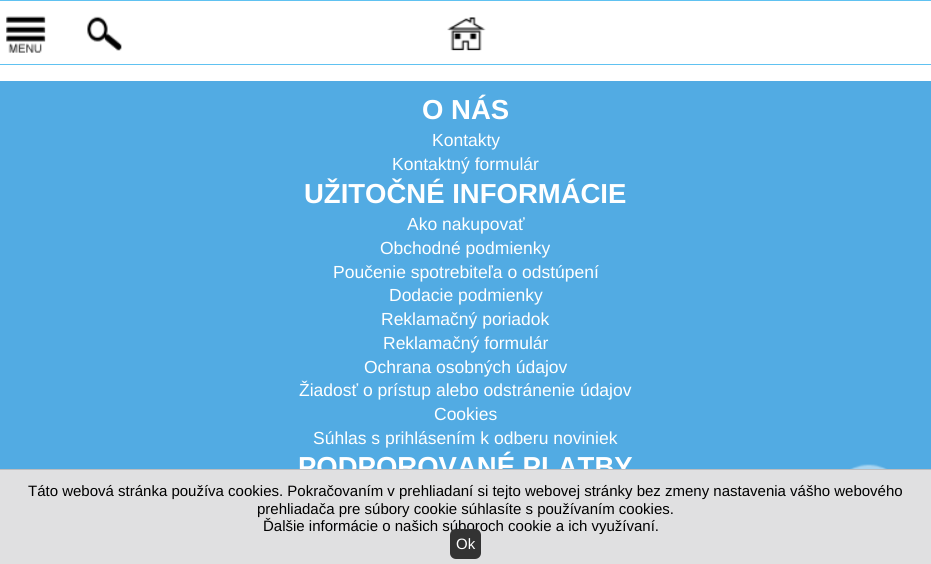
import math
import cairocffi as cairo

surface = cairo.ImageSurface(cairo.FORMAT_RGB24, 931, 564)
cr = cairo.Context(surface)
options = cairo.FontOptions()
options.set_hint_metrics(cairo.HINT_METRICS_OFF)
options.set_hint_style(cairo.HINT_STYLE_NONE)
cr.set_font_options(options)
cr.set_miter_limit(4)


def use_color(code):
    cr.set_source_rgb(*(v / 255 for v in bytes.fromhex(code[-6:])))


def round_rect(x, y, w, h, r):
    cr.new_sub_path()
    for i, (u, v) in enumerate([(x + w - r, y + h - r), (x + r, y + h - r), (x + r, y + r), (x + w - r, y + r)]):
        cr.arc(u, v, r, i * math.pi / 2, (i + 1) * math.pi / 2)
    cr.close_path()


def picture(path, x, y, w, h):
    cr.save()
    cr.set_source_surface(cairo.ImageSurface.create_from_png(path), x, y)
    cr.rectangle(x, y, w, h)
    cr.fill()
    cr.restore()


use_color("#ffffff")
cr.paint()
use_color("#60c2f1")
cr.rectangle(0, 0, 931, 1)
cr.fill()
cr.rectangle(0, 64, 931, 1)
cr.fill()
picture("img1.png", 6, 16, 40, 37)
picture("img2.png", 87, 16, 35, 35)
picture("img3.png", 447, 17, 39, 34)
use_color("#52abe3")
cr.rectangle(0, 81, 931, 388)
cr.fill()
cr.select_font_face("Liberation Sans", cairo.FONT_SLANT_NORMAL, cairo.FONT_WEIGHT_BOLD)
cr.set_font_size(27.5)
use_color("#ffffff")
cr.move_to(422, 119)
cr.show_text("O NÁS")
cr.select_font_face("Liberation Sans")
cr.set_font_size(17.5)
cr.move_to(432, 146)
cr.show_text("Kontakty")
cr.move_to(392, 170)
cr.show_text("Kontaktný formulár")
cr.select_font_face("Liberation Sans", cairo.FONT_SLANT_NORMAL, cairo.FONT_WEIGHT_BOLD)
cr.set_font_size(27.5)
cr.move_to(304, 203)
cr.show_text("UŽITOČNÉ INFORMÁCIE")
cr.select_font_face("Liberation Sans")
cr.set_font_size(17.5)
cr.move_to(407, 230)
cr.show_text("Ako nakupovať")
cr.move_to(380, 254)
cr.show_text("Obchodné podmienky")
cr.move_to(333, 278)
cr.show_text("Poučenie spotrebiteľa o odstúpení")
cr.move_to(389, 301)
cr.show_text("Dodacie podmienky")
cr.move_to(381, 325)
cr.show_text("Reklamačný poriadok")
cr.move_to(383, 349)
cr.show_text("Reklamačný formulár")
cr.move_to(364, 373)
cr.show_text("Ochrana osobných údajov")
cr.move_to(299, 396)
cr.show_text("Žiadosť o prístup alebo odstránenie údajov")
cr.move_to(434, 420)
cr.show_text("Cookies")
cr.move_to(313, 444)
cr.show_text("Súhlas s prihlásením k odberu noviniek")
cr.select_font_face("Liberation Sans", cairo.FONT_SLANT_NORMAL, cairo.FONT_WEIGHT_BOLD)
cr.set_font_size(27.5)
cr.move_to(298, 476)
cr.show_text("PODPOROVANÉ PLATBY")
picture("img4.png", 850, 464, 38, 5)
use_color("#e0e0e1")
cr.rectangle(0, 470, 931, 94)
cr.fill()
use_color("#bdbdbf")
cr.rectangle(0, 469, 931, 1)
cr.fill()
cr.select_font_face("Liberation Sans")
cr.set_font_size(15)
use_color("#000000")
cr.move_to(28, 496)
cr.show_text("Táto webová stránka používa cookies. Pokračovaním v prehliadaní si tejto webovej stránky bez zmeny nastavenia vášho webového")
cr.move_to(257, 514)
cr.show_text("prehliadača pre súbory cookie súhlasíte s používaním cookies.")
cr.move_to(263, 531)
cr.show_text("Ďalšie informácie o našich súboroch cookie a ich využívaní.")
use_color("#333333")
round_rect(450, 529, 31, 30, 6)
cr.fill()
use_color("#ffffff")
cr.move_to(456, 549)
cr.show_text("Ok")
surface.write_to_png("result.png")
